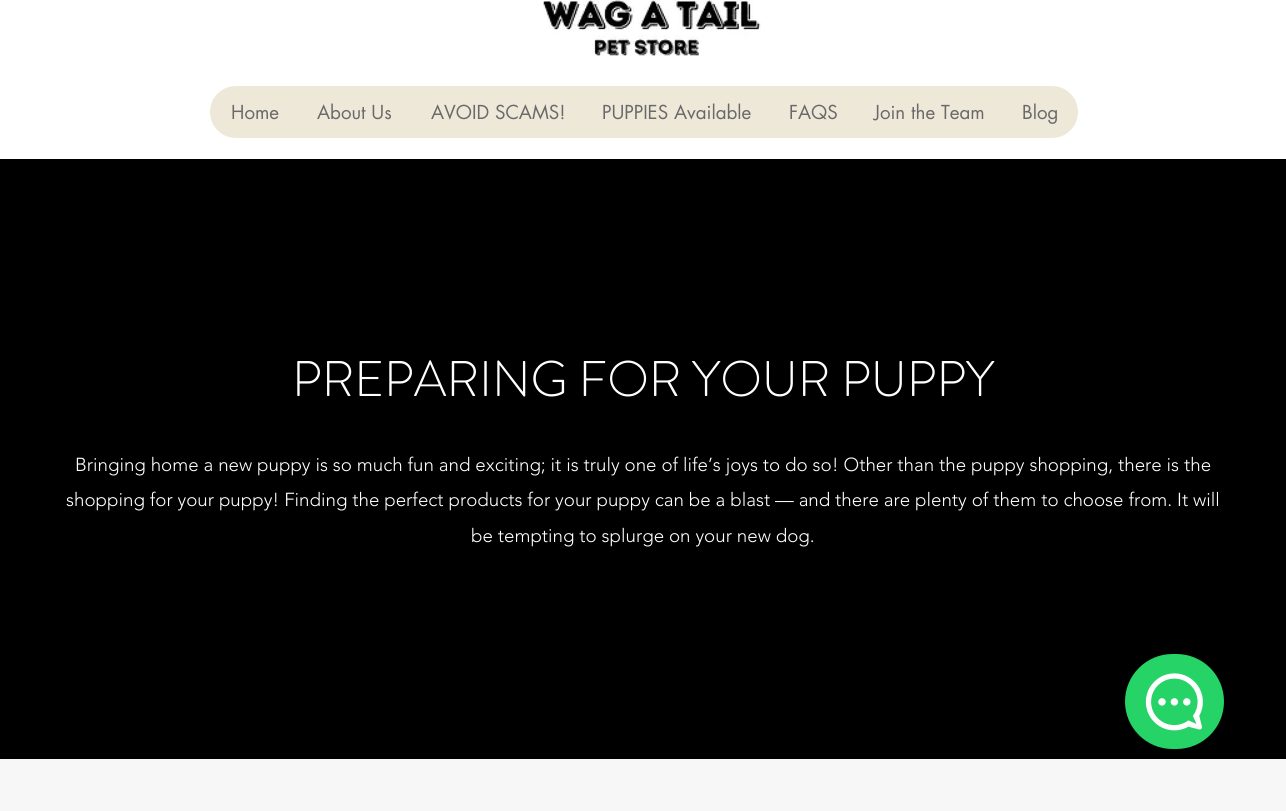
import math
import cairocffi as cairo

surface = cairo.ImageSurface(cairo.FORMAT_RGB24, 1286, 811)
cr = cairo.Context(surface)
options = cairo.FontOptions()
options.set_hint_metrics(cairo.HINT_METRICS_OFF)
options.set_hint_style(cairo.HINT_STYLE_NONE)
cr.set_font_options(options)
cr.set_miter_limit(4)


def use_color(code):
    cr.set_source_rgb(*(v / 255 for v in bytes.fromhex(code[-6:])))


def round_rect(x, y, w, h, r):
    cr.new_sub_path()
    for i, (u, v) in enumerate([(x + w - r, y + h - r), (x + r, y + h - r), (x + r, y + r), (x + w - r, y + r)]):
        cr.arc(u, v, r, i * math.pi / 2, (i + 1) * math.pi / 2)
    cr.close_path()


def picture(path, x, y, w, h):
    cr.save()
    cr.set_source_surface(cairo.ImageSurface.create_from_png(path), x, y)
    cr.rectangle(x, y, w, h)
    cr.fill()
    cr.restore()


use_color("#ffffff")
cr.paint()
picture("img1.png", 543, 0, 218, 56)
use_color("#eee8d8")
round_rect(210, 86, 868, 52, 26)
cr.fill()
cr.select_font_face("futura")
cr.set_font_size(18.75)
use_color("#696969")
cr.move_to(231, 119)
cr.show_text("Home")
cr.move_to(317, 119)
cr.show_text("About Us")
cr.move_to(431, 119)
cr.show_text("AVOID SCAMS!")
cr.move_to(602, 119)
cr.show_text("PUPPIES Available")
cr.move_to(789, 119)
cr.show_text("FAQS")
cr.move_to(874, 119)
cr.show_text("Join the Team")
cr.move_to(1022, 119)
cr.show_text("Blog")
use_color("#000000")
cr.rectangle(0, 159, 1286, 600)
cr.fill()
cr.select_font_face("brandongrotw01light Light")
cr.set_font_size(50)
use_color("#ffffff")
cr.move_to(292, 396)
cr.show_text("PREPARING FOR YOUR PUPPY")
cr.select_font_face("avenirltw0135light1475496 Light")
cr.set_font_size(18.75)
cr.move_to(75, 471)
cr.show_text("Bringing home a new puppy is so much fun and exciting; it is truly one of life’s joys to do so! Other than the puppy shopping, there is the")
cr.move_to(66, 506)
cr.show_text("shopping for your puppy! Finding the perfect products for your puppy can be a blast — and there are plenty of them to choose from. It will")
cr.move_to(471, 542)
cr.show_text("be tempting to splurge on your new dog.")
use_color("#f7f7f7")
cr.rectangle(0, 759, 1286, 52)
cr.fill()
use_color("#25d366")
round_rect(1125, 654, 99, 95, 47.5)
cr.fill()
picture("img2.png", 1145, 673, 58, 58)
surface.write_to_png("result.png")
